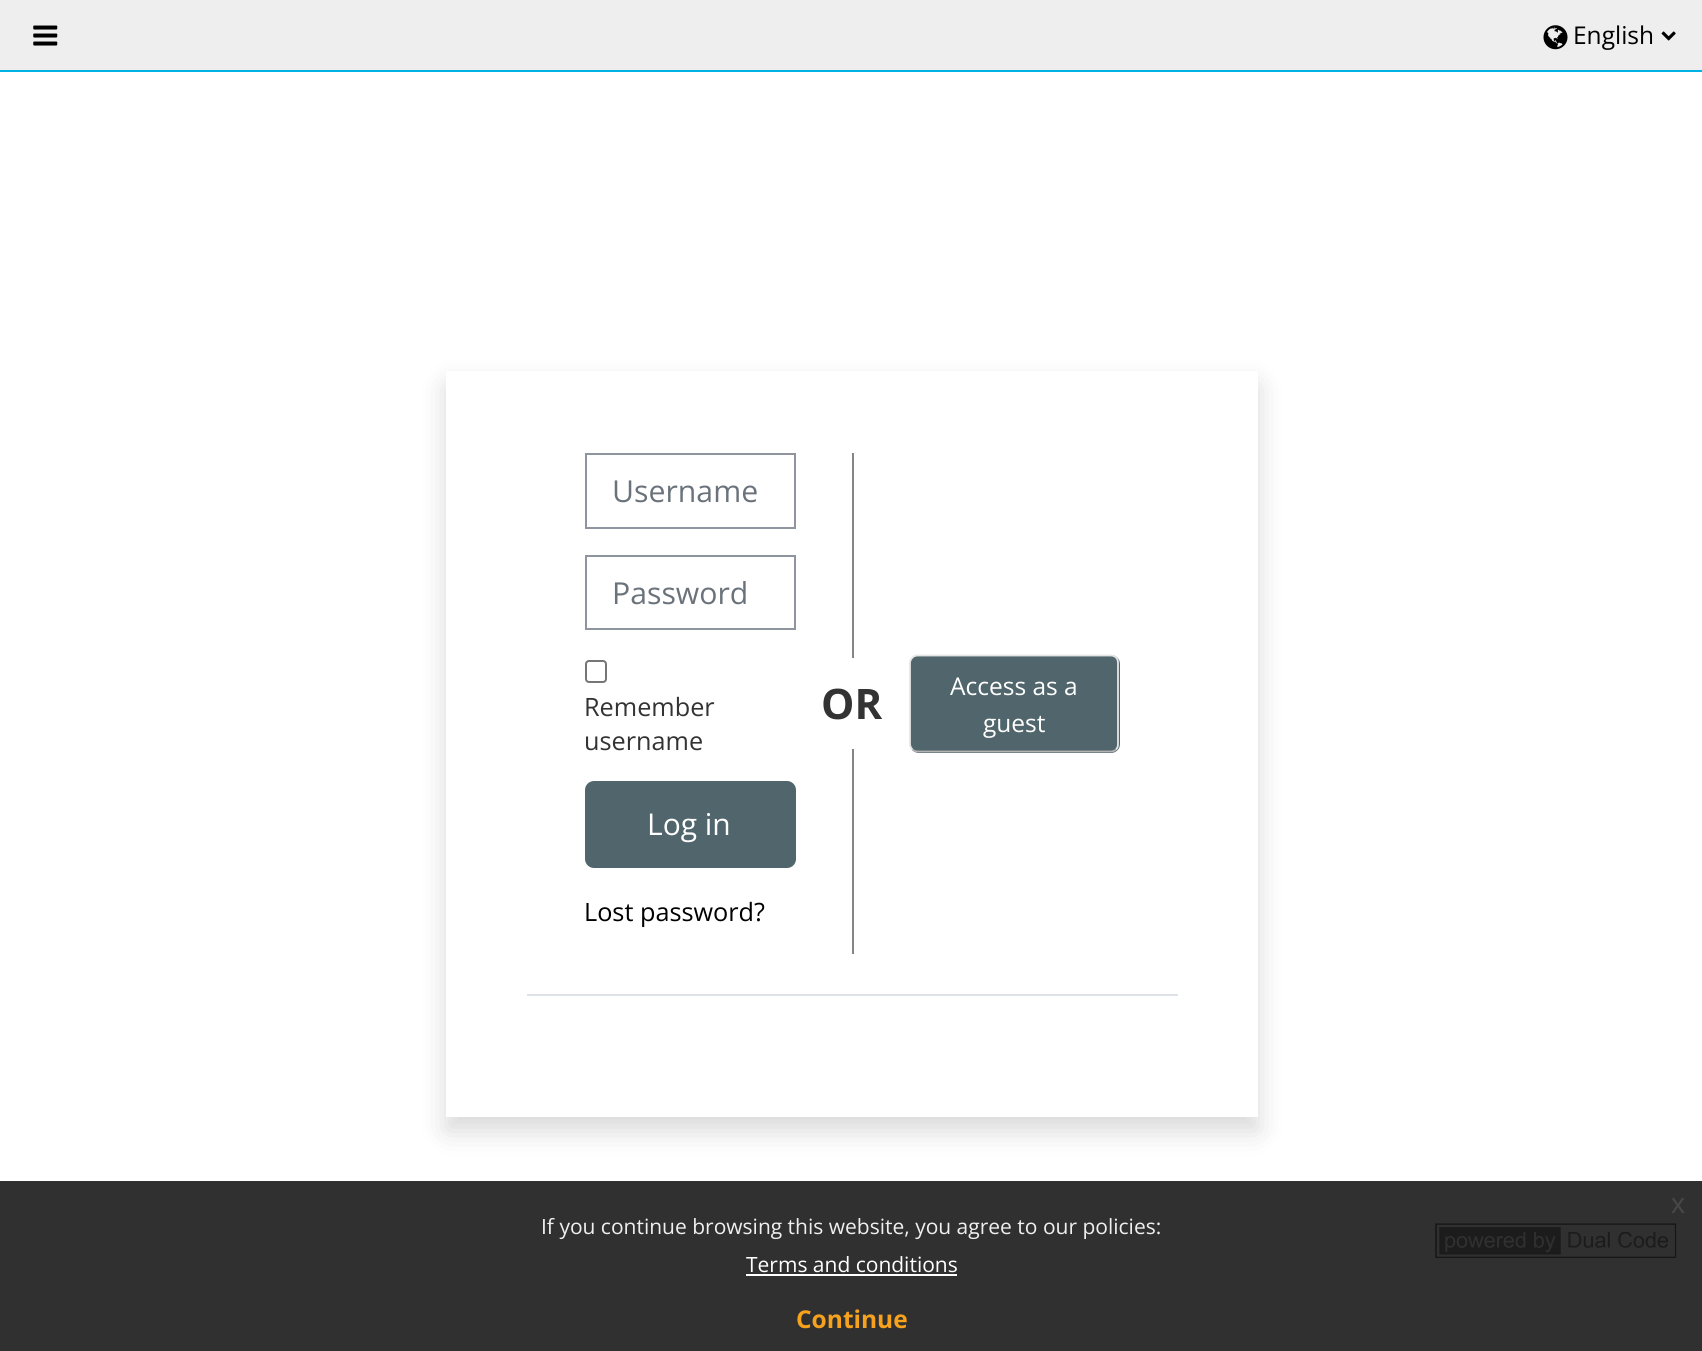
import math
import cairocffi as cairo

surface = cairo.ImageSurface(cairo.FORMAT_RGB24, 1702, 1351)
cr = cairo.Context(surface)
options = cairo.FontOptions()
options.set_hint_metrics(cairo.HINT_METRICS_OFF)
options.set_hint_style(cairo.HINT_STYLE_NONE)
cr.set_font_options(options)
cr.set_miter_limit(4)


def use_color(code):
    cr.set_source_rgb(*(v / 255 for v in bytes.fromhex(code[-6:])))


def round_rect(x, y, w, h, r):
    cr.new_sub_path()
    for i, (u, v) in enumerate([(x + w - r, y + h - r), (x + r, y + h - r), (x + r, y + r), (x + w - r, y + r)]):
        cr.arc(u, v, r, i * math.pi / 2, (i + 1) * math.pi / 2)
    cr.close_path()


def shadow(x, y, w, h, r, blur, alpha):
    cr.push_group_with_content(cairo.CONTENT_ALPHA)
    cr.set_operator(cairo.OPERATOR_SOURCE)
    for i in range(15, -16, -2):
        e = blur * i / 6
        if min(w, h) + 2 * e > 0:
            cr.set_source_rgba(0, 0, 0, alpha * math.erfc((i - 1) / 8.5) / 2)
            round_rect(x - e, y - e, w + 2 * e, h + 2 * e, max(0, min(r + e + blur * .6, min(w, h) / 2 + e)))
            cr.fill()
    cr.mask(cr.pop_group())


def picture(path, x, y, w, h):
    cr.save()
    cr.set_source_surface(cairo.ImageSurface.create_from_png(path), x, y)
    cr.rectangle(x, y, w, h)
    cr.fill()
    cr.restore()


use_color("#ffffff")
cr.paint()
use_color("#303030")
cr.rectangle(0, 1181, 1702, 170)
cr.fill()
use_color("#eeeeee")
cr.rectangle(0, 0, 1702, 70)
cr.fill()
use_color("#00b2e3")
cr.rectangle(0, 70, 1702, 2)
cr.fill()
picture("img1.png", 33, 25, 25, 21)
picture("img2.png", 1543, 25, 25, 25)
cr.select_font_face("Open Sans")
cr.set_font_size(24.5)
use_color("#000000")
cr.move_to(1573, 44)
cr.show_text("English")
picture("img3.png", 1661, 31, 15, 10)
cr.save()
cr.set_fill_rule(cairo.FILL_RULE_EVEN_ODD)
cr.new_path()
cr.move_to(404, 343)
cr.line_to(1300, 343)
cr.line_to(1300, 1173)
cr.line_to(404, 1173)
cr.close_path()
cr.move_to(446, 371)
cr.line_to(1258, 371)
cr.line_to(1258, 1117)
cr.line_to(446, 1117)
cr.close_path()
cr.clip()
use_color("#000000")
shadow(446, 385, 812, 746, 0, 13.5, 0.15)
cr.restore()
cr.set_source_rgba(1, 1, 1, 0.8)
cr.rectangle(446, 376, 812, 741)
cr.fill()
cr.rectangle(586, 454, 209, 74)
use_color("#8f959e")
cr.stroke()
cr.set_font_size(30.25)
use_color("#6a737b")
cr.move_to(612, 502)
cr.show_text("Username")
cr.rectangle(586, 556, 209, 73)
use_color("#8f959e")
cr.stroke()
use_color("#6a737b")
cr.move_to(612, 604)
cr.show_text("Password")
round_rect(586, 661, 20, 21, 3)
use_color("#767676")
cr.stroke()
cr.set_font_size(25.25)
use_color("#333333")
cr.move_to(584, 716)
cr.show_text("Remember")
cr.move_to(584, 750)
cr.show_text("username")
use_color("#51666c")
round_rect(585, 781, 211, 87, 9)
cr.fill()
cr.set_font_size(30)
use_color("#ffffff")
cr.move_to(647, 835)
cr.show_text("Log in")
cr.set_font_size(25.25)
use_color("#000000")
cr.move_to(584, 921)
cr.show_text("Lost password?")
use_color("#858585")
cr.rectangle(852, 453, 2, 501)
cr.fill()
use_color("#ffffff")
cr.arc(852.5, 703.5, 45.5, 0, 2 * math.pi)
cr.fill()
cr.select_font_face("Open Sans", cairo.FONT_SLANT_NORMAL, cairo.FONT_WEIGHT_BOLD)
cr.set_font_size(42)
use_color("#333333")
cr.move_to(821, 719)
cr.show_text("OR")
use_color("#51666c")
round_rect(910, 655, 210, 98, 9)
cr.fill()
cr.new_path()
cr.move_to(1116, 749.5)
cr.curve_to(1114.5, 751, 1112.5, 751.5, 1110.5, 751.5)
cr.line_to(918, 751.5)
cr.curve_to(916, 751.5, 914, 751, 912.5, 749.5)
use_color("#b3b3b3")
cr.set_line_width(1.8)
cr.stroke()
cr.new_path()
cr.move_to(912.5, 749.5)
cr.curve_to(911, 748, 910, 746, 910, 744)
cr.line_to(910, 663)
cr.curve_to(910, 661, 911, 659, 912.5, 657.5)
cr.curve_to(914, 656, 916, 655.5, 918, 655.5)
cr.line_to(1110.5, 655.5)
cr.curve_to(1112.5, 655.5, 1114.5, 656, 1116, 657.5)
cr.curve_to(1117.5, 659, 1118, 661, 1118, 663)
cr.line_to(1118, 744)
cr.curve_to(1118, 746, 1117.5, 748, 1116, 749.5)
use_color("#e6e6e6")
cr.stroke()
cr.select_font_face("Open Sans")
cr.set_font_size(24.5)
use_color("#ffffff")
cr.move_to(950, 695)
cr.show_text("Access as a")
cr.move_to(983, 732)
cr.show_text("guest")
use_color("#dee2e6")
cr.rectangle(527, 994, 651, 2)
cr.fill()
picture("img4.png", 1435, 1223, 242, 35)
cr.select_font_face("Liberation Sans")
cr.set_font_size(28)
use_color("#474747")
cr.move_to(1671, 1213)
cr.show_text("x")
cr.select_font_face("Open Sans")
cr.set_font_size(21)
use_color("#efefef")
cr.move_to(541, 1234)
cr.show_text("If you continue browsing this website, you agree to our policies:")
use_color("#ffffff")
cr.move_to(746, 1272)
cr.show_text("Terms and conditions")
cr.rectangle(746, 1274, 211, 2)
cr.fill()
cr.select_font_face("Open Sans", cairo.FONT_SLANT_NORMAL, cairo.FONT_WEIGHT_BOLD)
cr.set_font_size(24.5)
use_color("#f6a21d")
cr.move_to(796, 1328)
cr.show_text("Continue")
surface.write_to_png("result.png")
